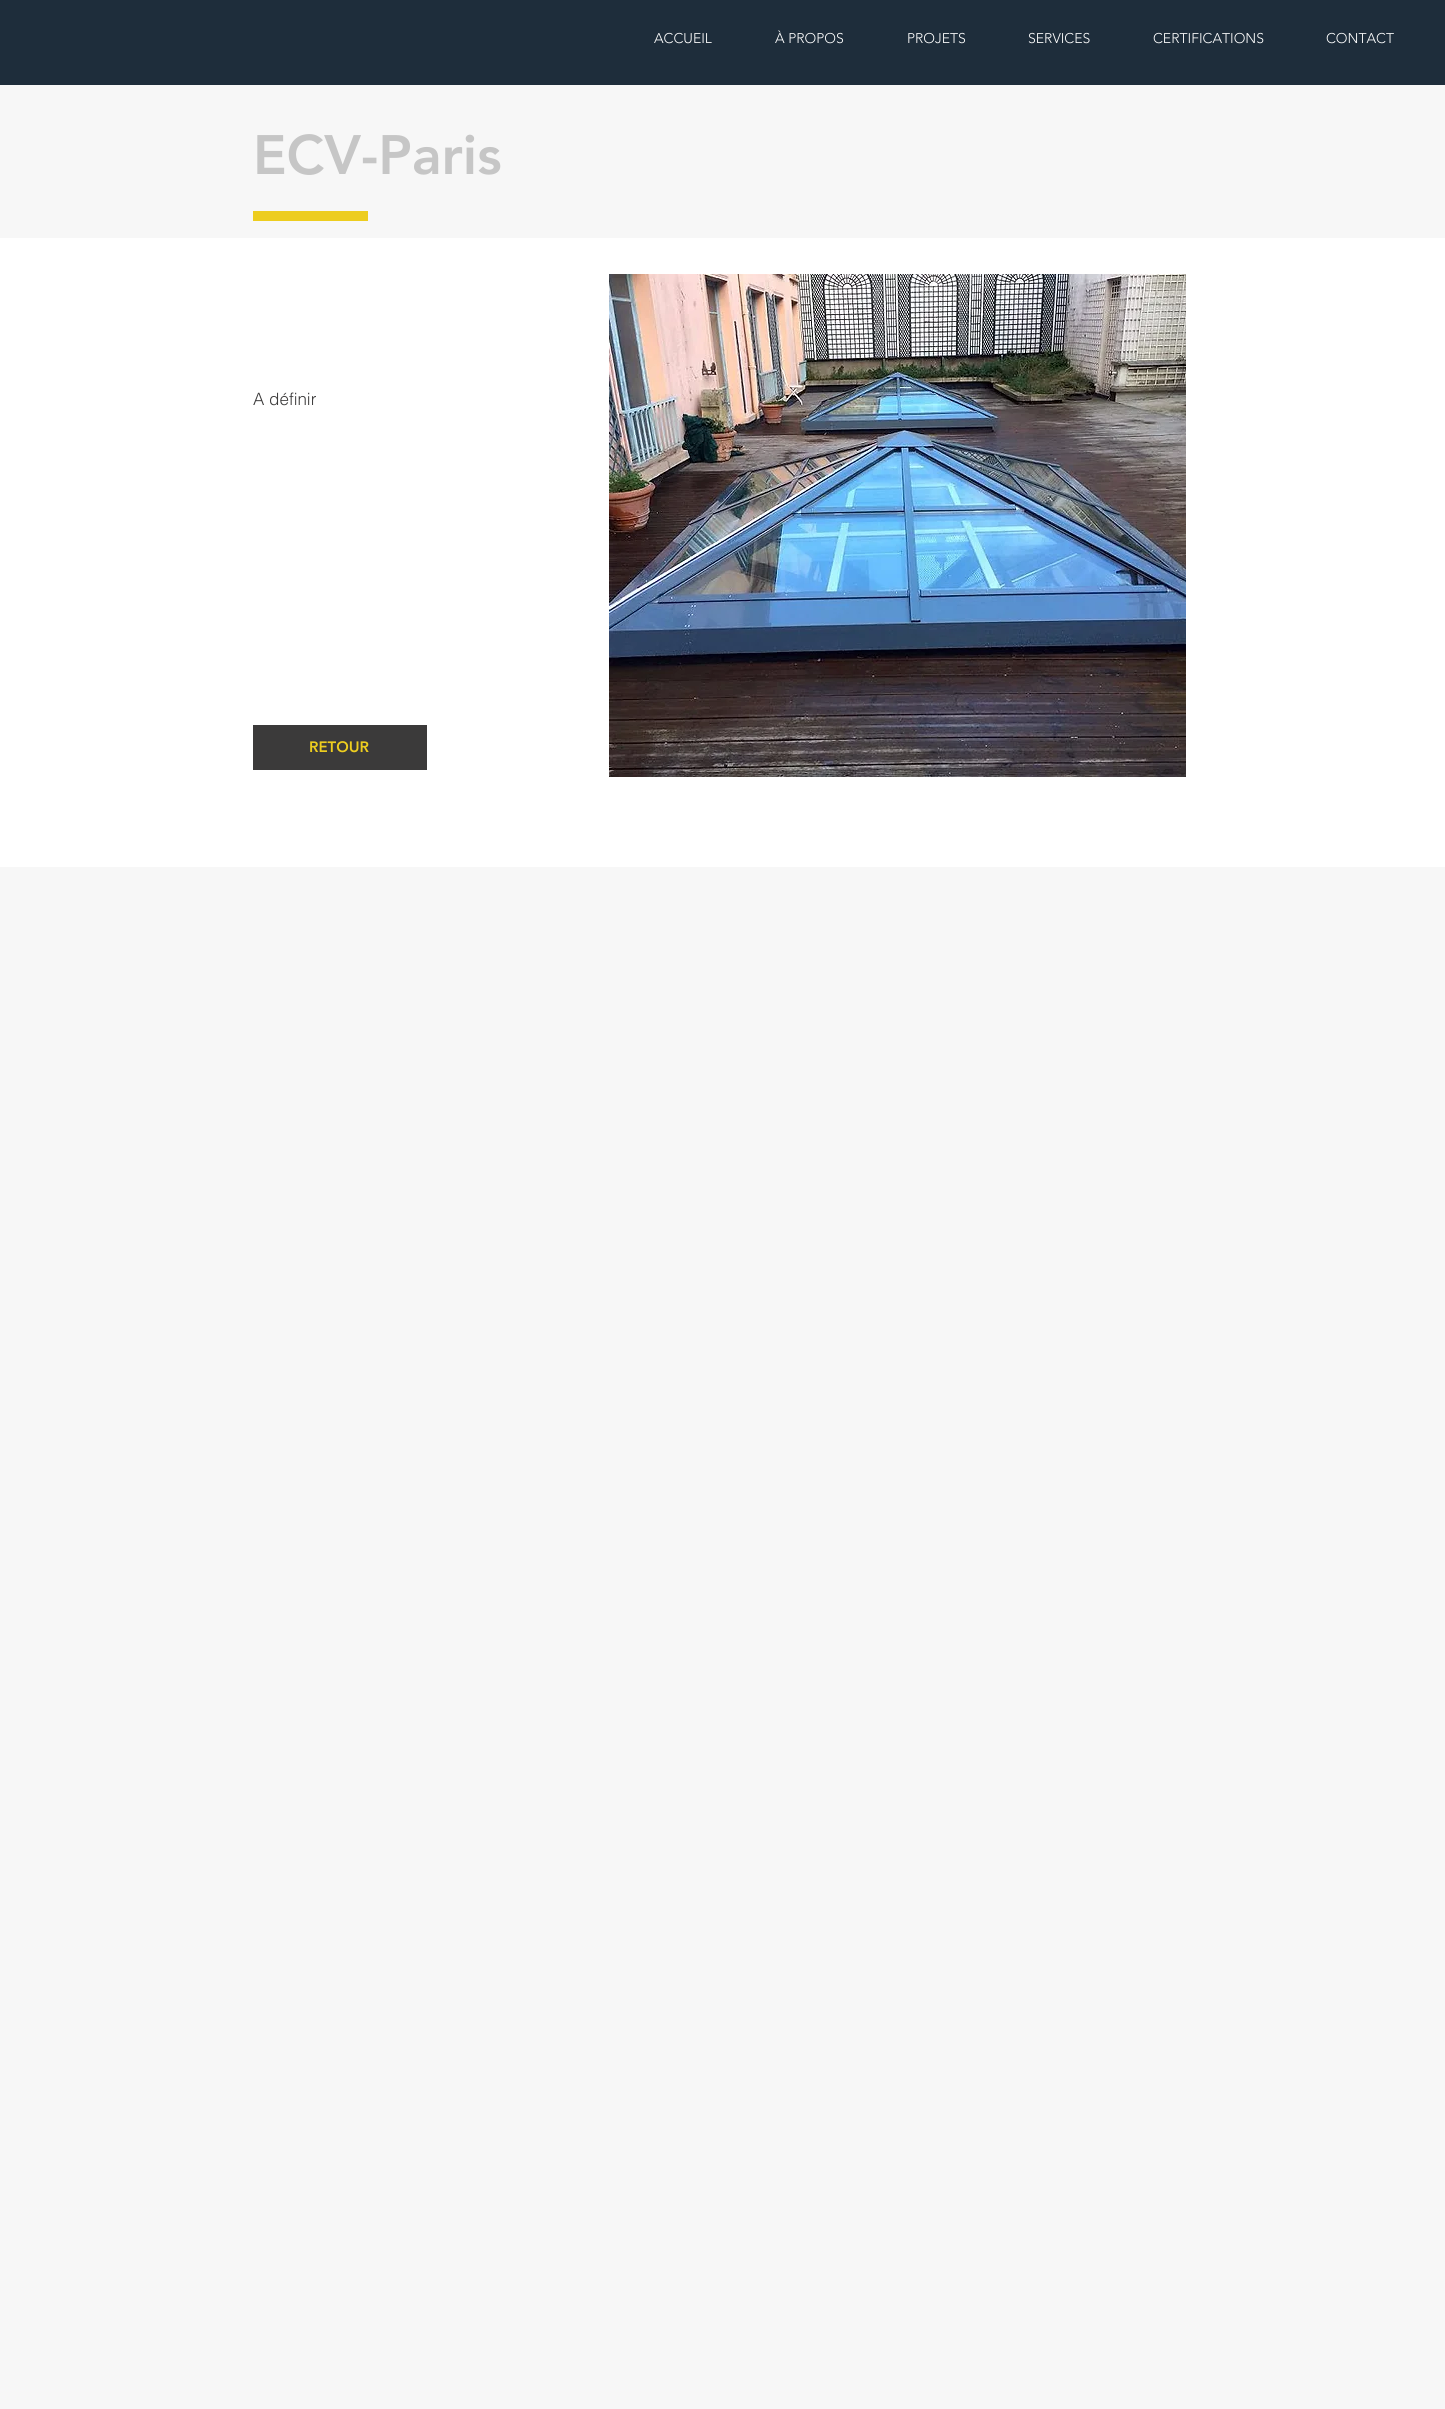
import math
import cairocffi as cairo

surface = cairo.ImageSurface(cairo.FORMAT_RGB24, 1445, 2409)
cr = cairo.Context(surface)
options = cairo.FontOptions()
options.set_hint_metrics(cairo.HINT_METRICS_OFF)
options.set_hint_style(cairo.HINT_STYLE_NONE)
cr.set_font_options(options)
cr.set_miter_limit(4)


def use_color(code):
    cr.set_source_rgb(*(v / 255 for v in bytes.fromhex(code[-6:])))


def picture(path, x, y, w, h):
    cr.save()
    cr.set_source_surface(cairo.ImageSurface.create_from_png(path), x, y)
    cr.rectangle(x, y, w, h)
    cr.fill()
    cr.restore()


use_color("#f7f7f7")
cr.paint()
use_color("#1e2d3b")
cr.rectangle(0, 0, 1445, 85)
cr.fill()
cr.select_font_face("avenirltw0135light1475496 Light")
cr.set_font_size(14)
use_color("#ffffff")
cr.move_to(654, 43)
cr.show_text("ACCUEIL")
cr.move_to(775, 43)
cr.show_text("À PROPOS")
cr.move_to(907, 43)
cr.show_text("PROJETS")
cr.move_to(1028, 43)
cr.show_text("SERVICES")
cr.move_to(1153, 43)
cr.show_text("CERTIFICATIONS")
cr.move_to(1326, 43)
cr.show_text("CONTACT")
cr.select_font_face("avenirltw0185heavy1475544 Black")
cr.set_font_size(55)
use_color("#c6c6c6")
cr.move_to(253, 174)
cr.show_text("ECV-Paris")
use_color("#edcd1f")
cr.rectangle(253, 211, 115, 10)
cr.fill()
use_color("#ffffff")
cr.rectangle(0, 238, 1445, 629)
cr.fill()
cr.select_font_face("helvetica Light")
cr.set_font_size(17)
use_color("#3b3a3a")
cr.move_to(253, 405)
cr.show_text("A définir")
picture("img1.png", 609, 274, 577, 503)
cr.rectangle(253, 725, 174, 45)
cr.fill()
cr.select_font_face("avenirltw0185heavy1475544 Black")
cr.set_font_size(15)
use_color("#edcd1f")
cr.move_to(309, 752)
cr.show_text("RETOUR")
surface.write_to_png("result.png")
